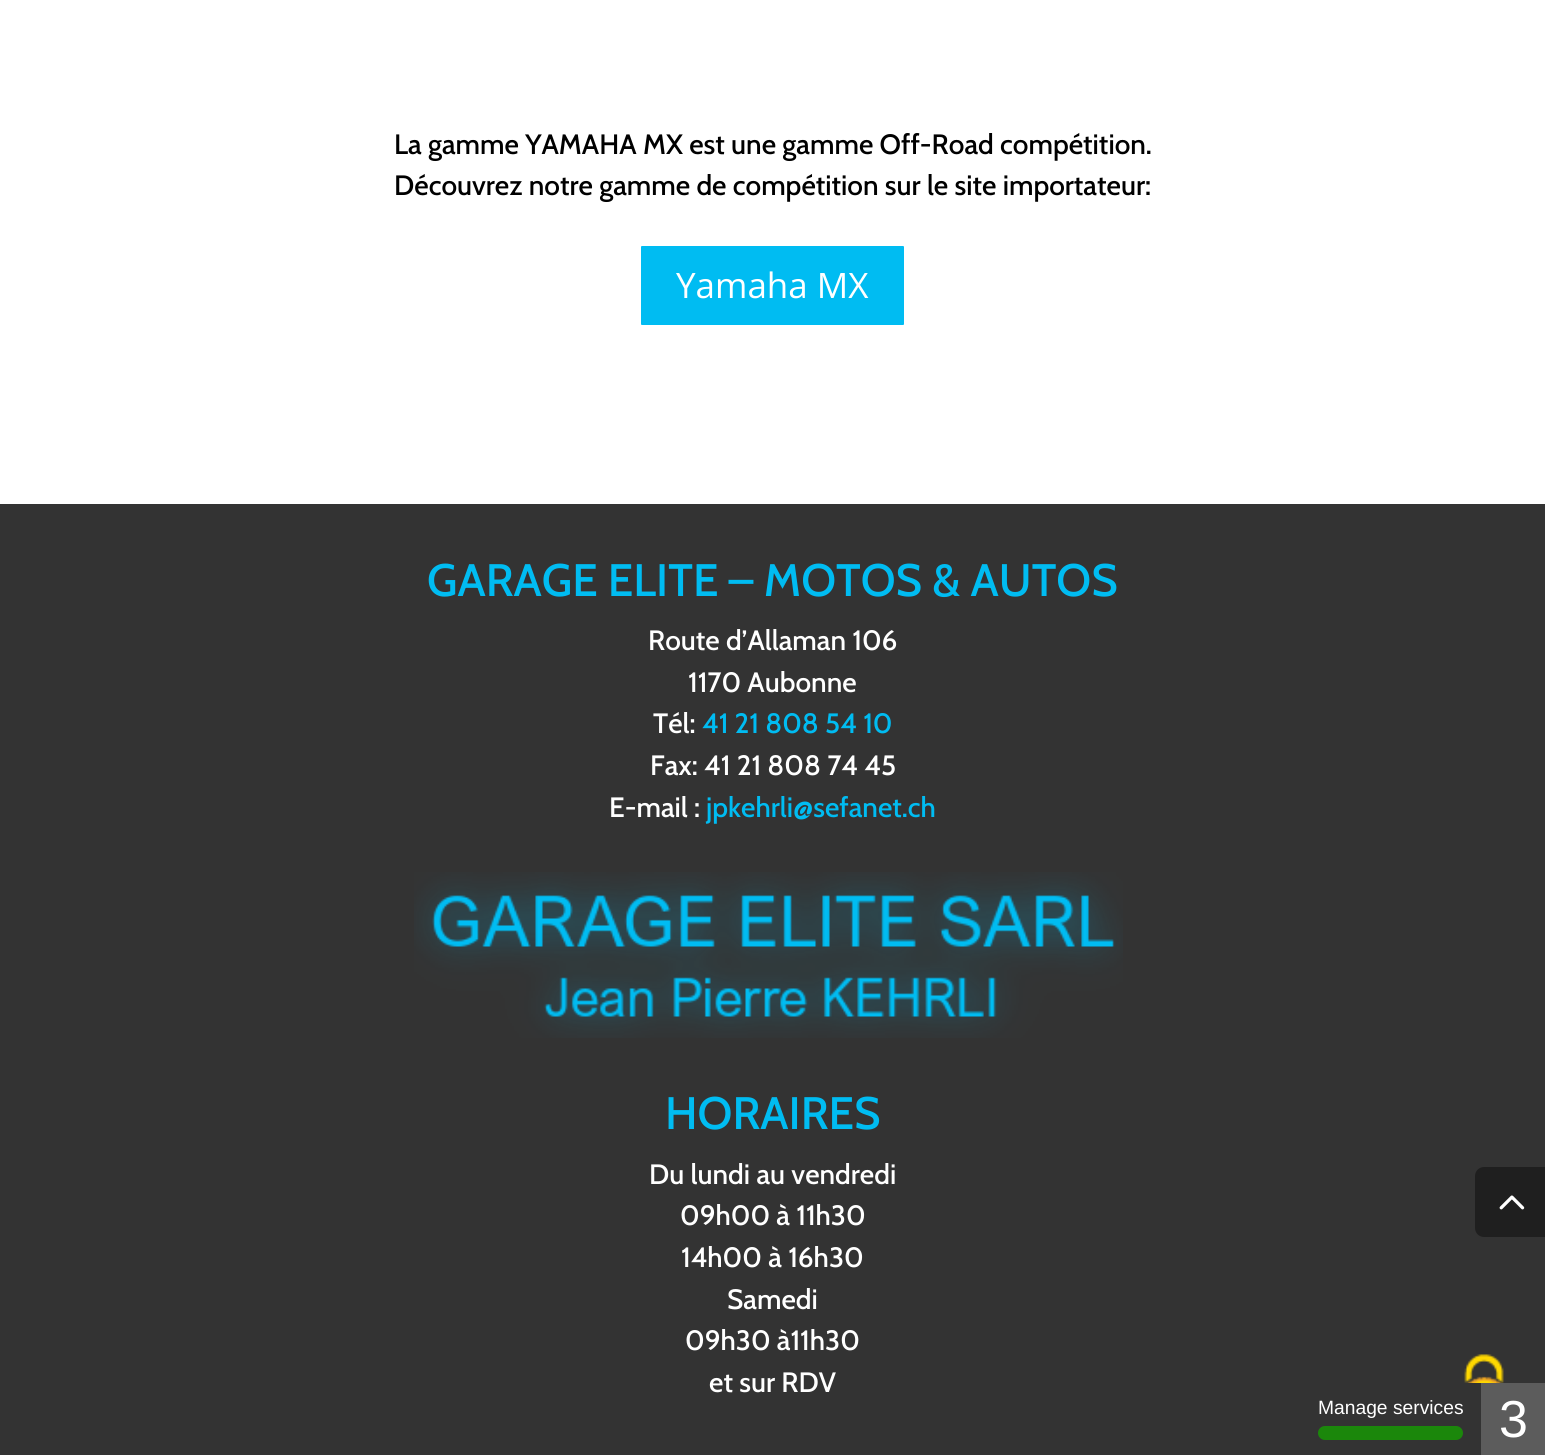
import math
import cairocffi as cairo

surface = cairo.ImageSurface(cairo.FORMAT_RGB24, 1545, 1455)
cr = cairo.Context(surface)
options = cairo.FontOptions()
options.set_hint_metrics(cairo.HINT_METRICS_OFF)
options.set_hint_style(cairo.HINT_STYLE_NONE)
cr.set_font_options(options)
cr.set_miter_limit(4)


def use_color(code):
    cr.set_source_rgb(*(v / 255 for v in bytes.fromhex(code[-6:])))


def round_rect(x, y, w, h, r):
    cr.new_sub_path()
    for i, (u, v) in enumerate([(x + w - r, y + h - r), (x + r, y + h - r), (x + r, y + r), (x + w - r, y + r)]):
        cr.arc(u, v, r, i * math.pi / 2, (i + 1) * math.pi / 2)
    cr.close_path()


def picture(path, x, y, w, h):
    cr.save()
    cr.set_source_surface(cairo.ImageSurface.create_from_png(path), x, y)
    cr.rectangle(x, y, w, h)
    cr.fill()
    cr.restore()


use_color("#ffffff")
cr.paint()
cr.select_font_face("Cabin Medium")
cr.set_font_size(28)
use_color("#000000")
cr.move_to(394, 154)
cr.show_text("La gamme YAMAHA MX est une gamme Off-Road compétition.")
cr.move_to(394, 195)
cr.show_text("Découvrez notre gamme de compétition sur le site importateur:")
use_color("#00bcf2")
round_rect(639, 244, 267, 83, 3)
cr.fill_preserve()
use_color("#ffffff")
cr.set_line_width(4)
cr.stroke()
cr.select_font_face("Open Sans")
cr.set_font_size(35)
cr.move_to(676, 298)
cr.show_text("Yamaha MX")
use_color("#333333")
cr.rectangle(0, 504, 1545, 951)
cr.fill()
cr.select_font_face("Cabin Medium")
cr.set_font_size(45.5)
use_color("#00bcf2")
cr.move_to(427, 596)
cr.show_text("GARAGE ELITE – MOTOS & AUTOS")
cr.set_font_size(28)
use_color("#ffffff")
cr.move_to(648, 650)
cr.show_text("Route d’Allaman 106")
cr.move_to(688, 692)
cr.show_text("1170 Aubonne")
cr.move_to(653, 733)
cr.show_text("Tél:")
use_color("#00bcf2")
cr.move_to(702, 733)
cr.show_text("41 21 808 54 10")
use_color("#ffffff")
cr.move_to(650, 775)
cr.show_text("Fax: 41 21 808 74 45")
cr.move_to(609, 817)
cr.show_text("E-mail :")
use_color("#00bcf2")
cr.move_to(706, 817)
cr.show_text("jpkehrli@sefanet.ch")
picture("img1.png", 414, 872, 709, 166)
cr.set_font_size(45.5)
cr.move_to(665, 1129)
cr.show_text("HORAIRES")
cr.set_font_size(28)
use_color("#ffffff")
cr.move_to(649, 1184)
cr.show_text("Du lundi au vendredi")
cr.move_to(680, 1225)
cr.show_text("09h00 à 11h30")
cr.move_to(681, 1267)
cr.show_text("14h00 à 16h30")
cr.move_to(727, 1309)
cr.show_text("Samedi")
cr.move_to(685, 1350)
cr.show_text("09h30 à11h30")
cr.move_to(709, 1392)
cr.show_text("et sur RDV")
use_color("#1f1f1f")
cr.new_path()
cr.move_to(1484, 1167)
cr.line_to(1545, 1167)
cr.line_to(1545, 1237)
cr.line_to(1484, 1237)
cr.curve_to(1479, 1237, 1475, 1233, 1475, 1228)
cr.line_to(1475, 1176)
cr.curve_to(1475, 1171, 1479, 1167, 1484, 1167)
cr.close_path()
cr.fill()
picture("img2.png", 1499, 1195, 26, 15)
picture("img3.png", 1464, 1354, 40, 29)
cr.select_font_face("Liberation Sans")
cr.set_font_size(19.25)
use_color("#ffffff")
cr.move_to(1318, 1414)
cr.show_text("Manage services")
use_color("#1b870b")
round_rect(1318, 1426, 145, 14, 7)
cr.fill()
use_color("#5c5c5c")
cr.rectangle(1481, 1383, 64, 72)
cr.fill()
cr.set_font_size(52)
use_color("#ffffff")
cr.move_to(1499, 1437)
cr.show_text("3")
surface.write_to_png("result.png")
